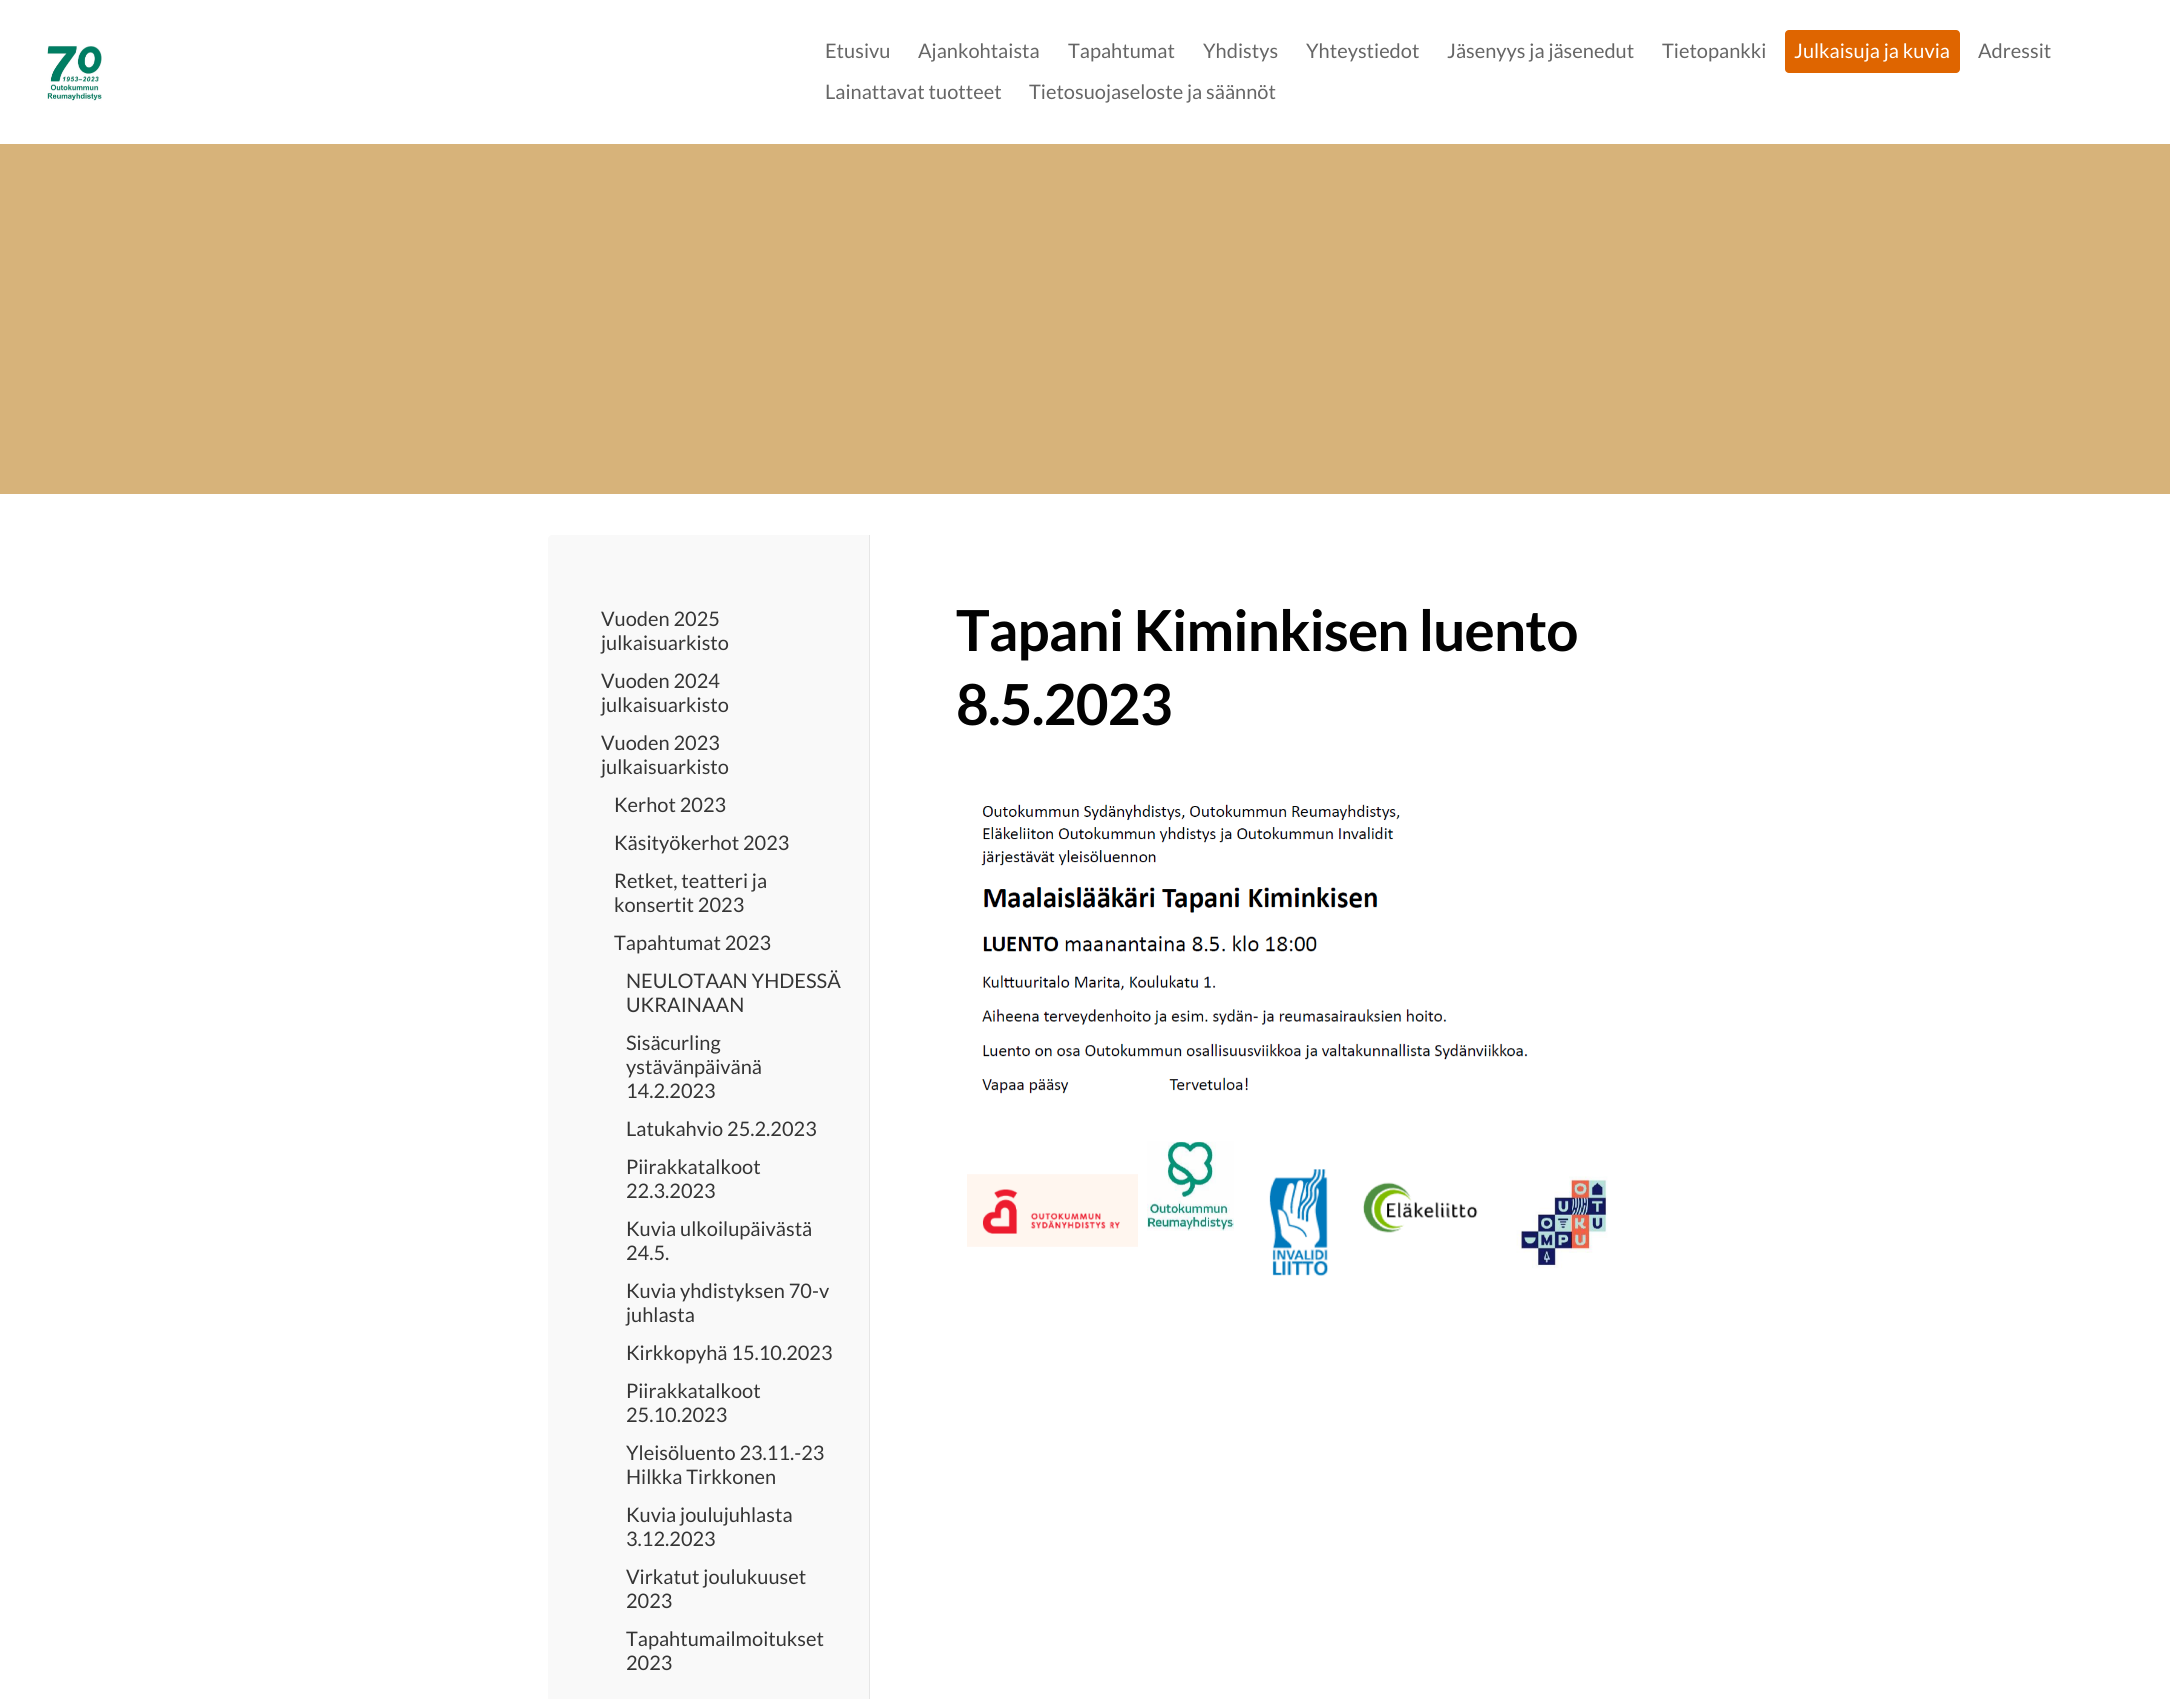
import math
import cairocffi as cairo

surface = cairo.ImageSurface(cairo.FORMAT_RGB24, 2170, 1699)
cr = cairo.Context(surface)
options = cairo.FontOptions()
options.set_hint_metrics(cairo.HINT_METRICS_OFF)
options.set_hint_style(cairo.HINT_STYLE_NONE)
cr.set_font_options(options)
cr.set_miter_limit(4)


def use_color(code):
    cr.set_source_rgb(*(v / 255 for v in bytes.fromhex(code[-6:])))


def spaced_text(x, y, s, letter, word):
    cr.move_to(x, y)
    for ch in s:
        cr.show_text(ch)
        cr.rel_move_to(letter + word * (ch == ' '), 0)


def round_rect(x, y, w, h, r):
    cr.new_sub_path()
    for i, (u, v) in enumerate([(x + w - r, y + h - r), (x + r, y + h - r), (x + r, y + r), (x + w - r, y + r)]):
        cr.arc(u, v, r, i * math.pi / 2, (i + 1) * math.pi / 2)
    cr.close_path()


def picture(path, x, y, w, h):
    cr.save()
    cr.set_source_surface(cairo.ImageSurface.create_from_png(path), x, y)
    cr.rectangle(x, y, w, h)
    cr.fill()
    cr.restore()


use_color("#ffffff")
cr.paint()
picture("img1.png", 47, 45, 55, 56)
cr.select_font_face("Lato")
cr.set_font_size(20)
use_color("#666666")
cr.move_to(825, 58)
cr.show_text("Etusivu")
cr.move_to(918, 58)
cr.show_text("Ajankohtaista")
cr.move_to(1068, 58)
cr.show_text("Tapahtumat")
cr.move_to(1203, 58)
cr.show_text("Yhdistys")
cr.move_to(1306, 58)
cr.show_text("Yhteystiedot")
cr.move_to(1447, 58)
cr.show_text("Jäsenyys ja jäsenedut")
cr.move_to(1662, 58)
cr.show_text("Tietopankki")
use_color("#df6500")
round_rect(1785, 30, 175, 43, 4)
cr.fill()
use_color("#ffffff")
cr.move_to(1794, 58)
cr.show_text("Julkaisuja ja kuvia")
use_color("#666666")
cr.move_to(1978, 58)
cr.show_text("Adressit")
cr.move_to(825, 99)
cr.show_text("Lainattavat tuotteet")
cr.move_to(1029, 99)
cr.show_text("Tietosuojaseloste ja säännöt")
use_color("#d7b37a")
cr.rectangle(0, 144, 2170, 350)
cr.fill()
use_color("#f9f9f9")
cr.new_path()
cr.move_to(552, 535)
cr.line_to(870, 535)
cr.line_to(870, 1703)
cr.line_to(548, 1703)
cr.line_to(548, 539)
cr.curve_to(548, 537, 550, 535, 552, 535)
cr.close_path()
cr.fill()
use_color("#e6e6e6")
cr.rectangle(869, 535, 1, 1164)
cr.fill()
use_color("#353535")
cr.move_to(601, 626)
cr.show_text("Vuoden 2025")
cr.move_to(601, 650)
cr.show_text("julkaisuarkisto")
cr.move_to(601, 688)
cr.show_text("Vuoden 2024")
cr.move_to(601, 712)
cr.show_text("julkaisuarkisto")
cr.move_to(601, 750)
cr.show_text("Vuoden 2023")
cr.move_to(601, 774)
cr.show_text("julkaisuarkisto")
cr.move_to(614, 812)
cr.show_text("Kerhot 2023")
cr.move_to(614, 850)
cr.show_text("Käsityökerhot 2023")
cr.move_to(614, 888)
cr.show_text("Retket, teatteri ja")
cr.move_to(614, 912)
cr.show_text("konsertit 2023")
cr.move_to(614, 950)
cr.show_text("Tapahtumat 2023")
cr.move_to(626, 988)
cr.show_text("NEULOTAAN YHDESSÄ")
cr.move_to(626, 1012)
cr.show_text("UKRAINAAN")
cr.move_to(626, 1050)
cr.show_text("Sisäcurling")
cr.move_to(626, 1074)
cr.show_text("ystävänpäivänä")
cr.move_to(626, 1098)
cr.show_text("14.2.2023")
cr.move_to(626, 1136)
cr.show_text("Latukahvio 25.2.2023")
cr.move_to(626, 1174)
cr.show_text("Piirakkatalkoot")
cr.move_to(626, 1198)
cr.show_text("22.3.2023")
cr.move_to(626, 1236)
cr.show_text("Kuvia ulkoilupäivästä")
cr.move_to(626, 1260)
cr.show_text("24.5.")
cr.move_to(626, 1298)
cr.show_text("Kuvia yhdistyksen 70-v")
cr.move_to(626, 1322)
cr.show_text("juhlasta")
cr.move_to(626, 1360)
cr.show_text("Kirkkopyhä 15.10.2023")
cr.move_to(626, 1398)
cr.show_text("Piirakkatalkoot")
cr.move_to(626, 1422)
cr.show_text("25.10.2023")
cr.move_to(626, 1460)
cr.show_text("Yleisöluento 23.11.-23")
cr.move_to(626, 1484)
cr.show_text("Hilkka Tirkkonen")
cr.move_to(626, 1522)
cr.show_text("Kuvia joulujuhlasta")
cr.move_to(626, 1546)
cr.show_text("3.12.2023")
cr.move_to(626, 1584)
cr.show_text("Virkatut joulukuuset")
cr.move_to(626, 1608)
cr.show_text("2023")
cr.move_to(626, 1646)
cr.show_text("Tapahtumailmoitukset")
cr.move_to(626, 1670)
cr.show_text("2023")
cr.select_font_face("Lato", cairo.FONT_SLANT_NORMAL, cairo.FONT_WEIGHT_BOLD)
cr.set_font_size(56.6)
use_color("#020202")
spaced_text(956, 651, "Tapani Kiminkisen luento", -0.85, 0)
spaced_text(956, 725, "8.5.2023", -0.85, 0)
picture("img2.png", 967, 804, 641, 472)
surface.write_to_png("result.png")
